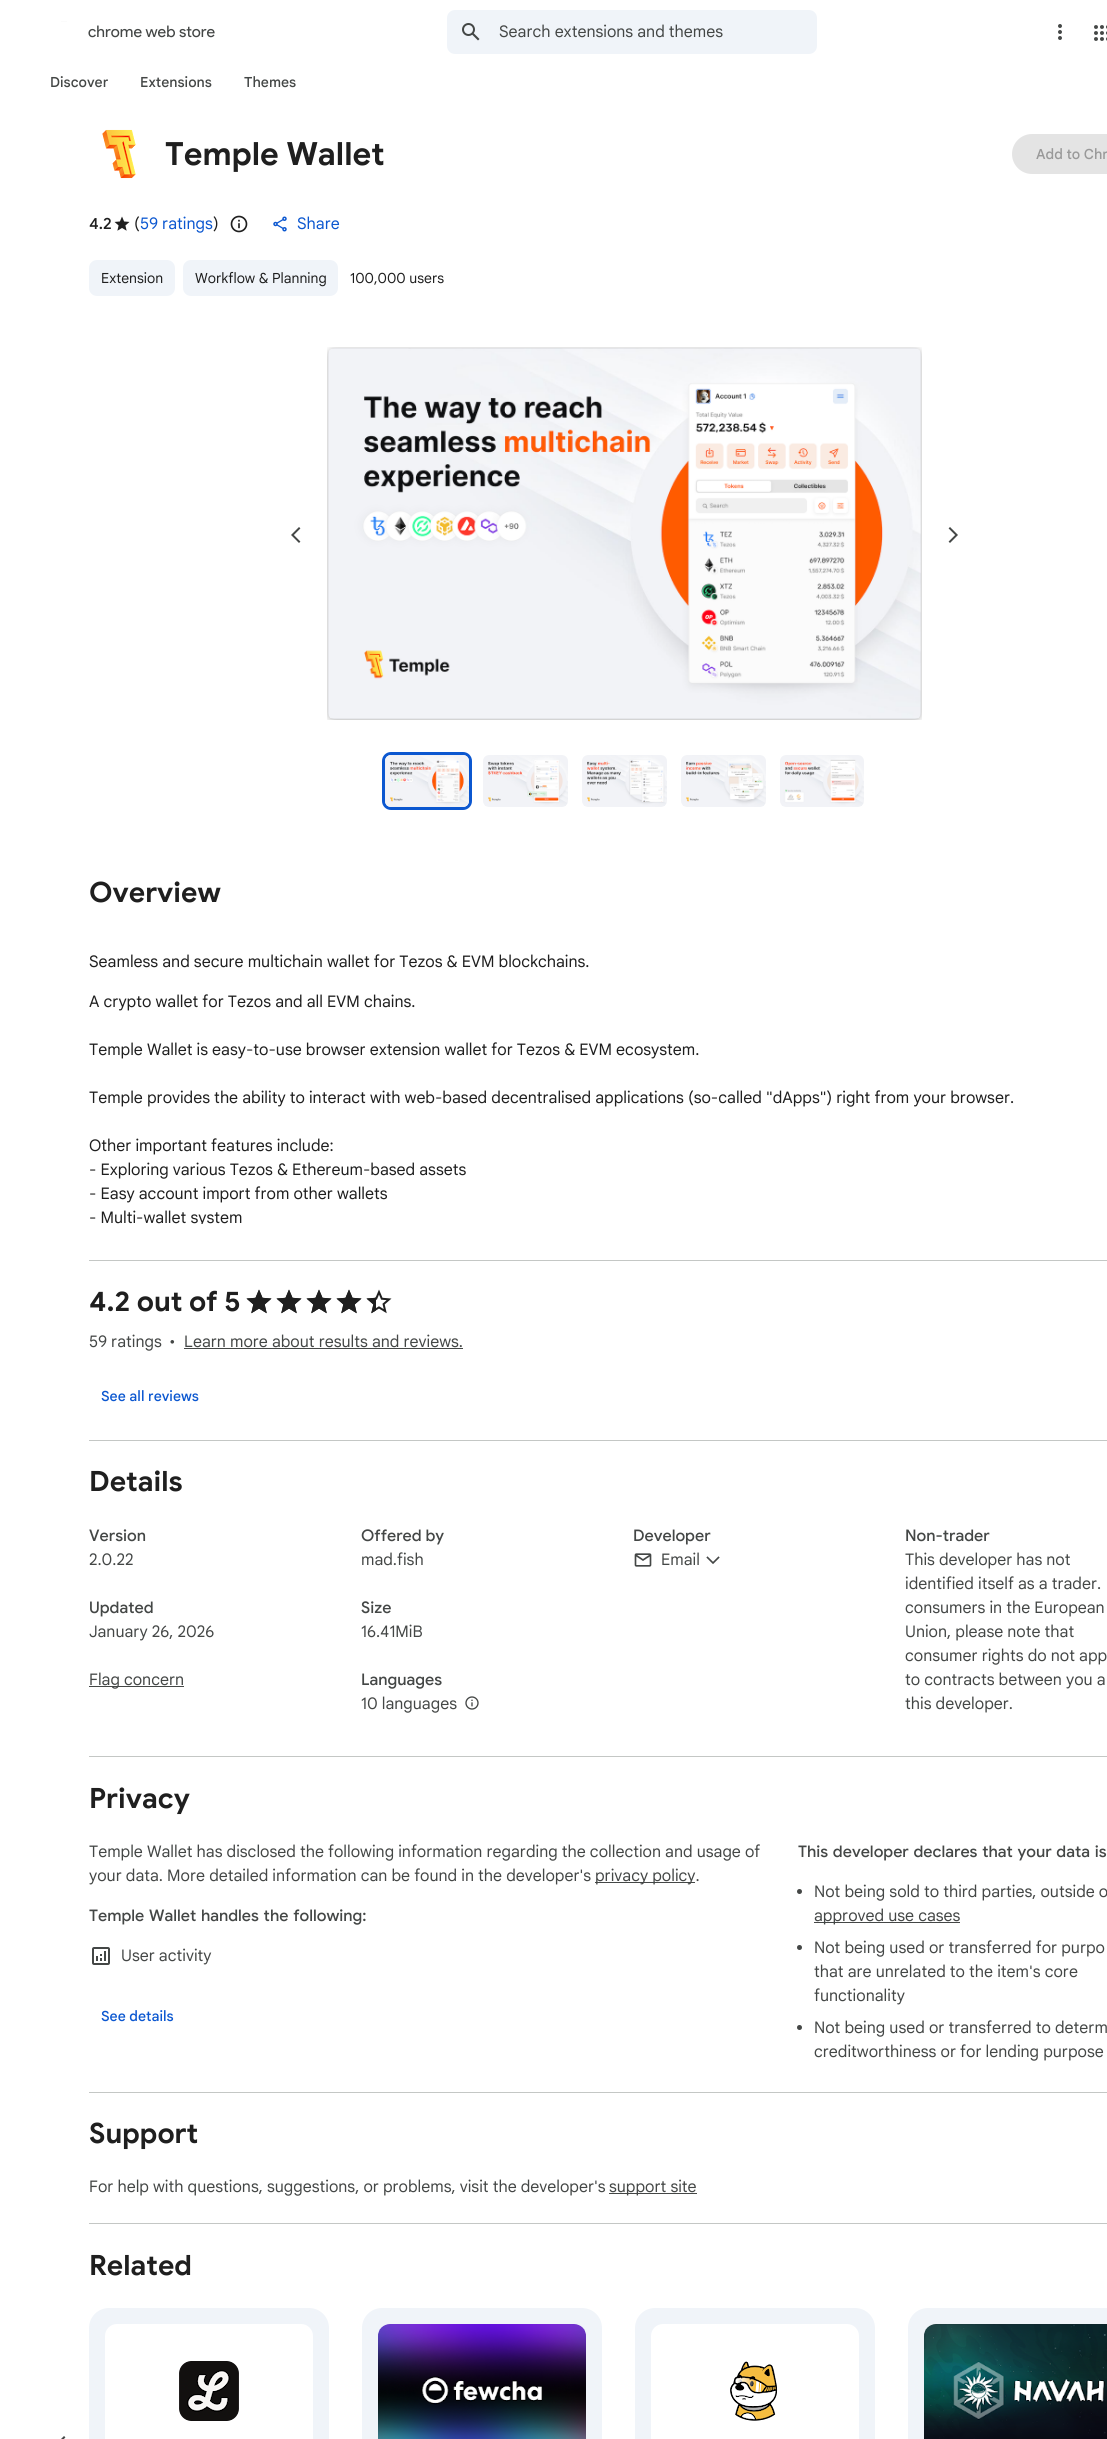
import math
import cairocffi as cairo

surface = cairo.ImageSurface(cairo.FORMAT_RGB24, 1107, 2439)
cr = cairo.Context(surface)
options = cairo.FontOptions()
options.set_hint_metrics(cairo.HINT_METRICS_OFF)
options.set_hint_style(cairo.HINT_STYLE_NONE)
cr.set_font_options(options)
cr.set_miter_limit(4)


def use_color(code):
    cr.set_source_rgb(*(v / 255 for v in bytes.fromhex(code[-6:])))


def spaced_text(x, y, s, letter, word):
    cr.move_to(x, y)
    for ch in s:
        cr.show_text(ch)
        cr.rel_move_to(letter + word * (ch == ' '), 0)


def round_rect(x, y, w, h, r):
    cr.new_sub_path()
    for i, (u, v) in enumerate([(x + w - r, y + h - r), (x + r, y + h - r), (x + r, y + r), (x + w - r, y + r)]):
        cr.arc(u, v, r, i * math.pi / 2, (i + 1) * math.pi / 2)
    cr.close_path()


def picture(path, x, y, w, h):
    cr.save()
    cr.set_source_surface(cairo.ImageSurface.create_from_png(path), x, y)
    cr.rectangle(x, y, w, h)
    cr.fill()
    cr.restore()


use_color("#ffffff")
cr.paint()
picture("img1.png", 61, 21, 6, 1)
cr.select_font_face("Product Sans")
cr.set_font_size(16)
use_color("#444746")
cr.move_to(88, 37)
cr.show_text("chrome web store")
use_color("#f0f4f9")
round_rect(447, 10, 370, 44, 8)
cr.fill()
picture("img2.png", 462, 23, 18, 18)
cr.select_font_face("Google Sans")
use_color("#444746")
cr.move_to(499, 37)
cr.show_text("Search extensions and themes")
picture("img3.png", 1058, 24, 4, 16)
picture("img4.png", 1094, 25, 13, 16)
cr.select_font_face("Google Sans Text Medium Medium")
cr.set_font_size(14)
cr.move_to(50, 87)
cr.show_text("Discover")
cr.move_to(140, 87)
cr.show_text("Extensions")
cr.move_to(244, 87)
cr.show_text("Themes")
picture("img5.png", 102, 129, 34, 50)
cr.select_font_face("Google Sans", cairo.FONT_SLANT_NORMAL, cairo.FONT_WEIGHT_BOLD)
cr.set_font_size(32)
use_color("#1f1f1f")
cr.move_to(165, 165)
cr.show_text("Temple Wallet")
use_color("#e4e4e4")
round_rect(1012, 134, 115, 40, 20)
cr.fill()
cr.select_font_face("Google Sans Text Medium Medium")
cr.set_font_size(14)
use_color("#999999")
cr.move_to(1036, 159)
cr.show_text("Add to Chr")
cr.select_font_face("Google Sans Medium")
cr.set_font_size(16)
use_color("#1f1f1f")
cr.move_to(89, 229)
cr.show_text("4.2")
picture("img6.png", 114, 216, 16, 15)
cr.select_font_face("Google Sans")
cr.move_to(134, 229)
cr.show_text("(")
use_color("#0b57d0")
cr.move_to(140, 229)
cr.show_text("59 ratings")
use_color("#1f1f1f")
cr.move_to(213, 229)
cr.show_text(")")
picture("img7.png", 230, 215, 18, 18)
picture("img8.png", 273, 216, 14, 16)
cr.select_font_face("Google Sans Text")
use_color("#0b57d0")
cr.move_to(297, 229)
cr.show_text("Share")
use_color("#f0f4f9")
round_rect(89, 260, 86, 36, 8)
cr.fill()
cr.select_font_face("Google Sans")
cr.set_font_size(14)
use_color("#1f1f1f")
cr.move_to(101, 283)
cr.show_text("Extension")
use_color("#f0f4f9")
round_rect(183, 260, 155, 36, 8)
cr.fill()
use_color("#1f1f1f")
cr.move_to(195, 283)
cr.show_text("Workflow & Planning")
cr.move_to(350, 283)
cr.show_text("100,000 users")
picture("img9.png", 291, 527, 10, 16)
picture("img10.png", 327, 347, 595, 373)
picture("img11.png", 948, 527, 10, 16)
round_rect(383.5, 753.5, 87, 55, 7.5)
use_color("#0b57d0")
cr.set_line_width(3)
cr.stroke()
picture("img12.png", 385, 755, 84, 52)
picture("img13.png", 483, 755, 85, 52)
picture("img14.png", 582, 755, 85, 52)
picture("img15.png", 681, 755, 85, 52)
picture("img16.png", 780, 755, 84, 52)
use_color("#c4c7c5")
cr.rectangle(89, 1260, 1018, 1)
cr.fill()
cr.select_font_face("Google Sans", cairo.FONT_SLANT_NORMAL, cairo.FONT_WEIGHT_BOLD)
cr.set_font_size(28)
use_color("#1f1f1f")
cr.move_to(89, 902)
cr.show_text("Overview")
cr.select_font_face("Google Sans")
cr.set_font_size(16)
cr.move_to(89, 967)
cr.show_text("Seamless and secure multichain wallet for Tezos & EVM blockchains.")
cr.move_to(89, 1007)
cr.show_text("A crypto wallet for Tezos and all EVM chains.")
cr.move_to(89, 1055)
cr.show_text("Temple Wallet is easy-to-use browser extension wallet for Tezos & EVM ecosystem.")
cr.move_to(89, 1103)
cr.show_text("Temple provides the ability to interact with web-based decentralised applications (so-called \"dApps\") right from your browser.")
cr.move_to(89, 1151)
cr.show_text("Other important features include:")
cr.move_to(89, 1175)
cr.show_text("- Exploring various Tezos & Ethereum-based assets")
cr.move_to(89, 1199)
cr.show_text("- Easy account import from other wallets")
cr.save()
cr.rectangle(89, 934, 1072, 290)
cr.clip()
cr.move_to(89, 1223)
cr.show_text("- Multi-wallet system")
cr.restore()
use_color("#c4c7c5")
cr.rectangle(89, 1440, 1018, 1)
cr.fill()
cr.select_font_face("Google Sans", cairo.FONT_SLANT_NORMAL, cairo.FONT_WEIGHT_BOLD)
cr.set_font_size(28)
use_color("#1f1f1f")
cr.move_to(89, 1311)
cr.show_text("4.2 out of 5")
picture("img17.png", 246, 1289, 26, 25)
picture("img17.png", 276, 1289, 26, 25)
picture("img17.png", 306, 1289, 26, 25)
picture("img17.png", 336, 1289, 26, 25)
picture("img17.png", 366, 1289, 26, 25)
picture("img18.png", 246, 1289, 26, 25)
picture("img18.png", 276, 1289, 26, 25)
picture("img18.png", 306, 1289, 26, 25)
picture("img18.png", 336, 1289, 26, 25)
picture("img19.png", 366, 1296, 10, 18)
cr.select_font_face("Google Sans")
cr.set_font_size(16)
use_color("#444746")
cr.move_to(89, 1347)
cr.show_text("59 ratings")
cr.move_to(169, 1347)
cr.show_text("•")
cr.move_to(184, 1347)
cr.show_text("Learn more about results and reviews.")
cr.rectangle(184, 1348, 279, 1)
cr.fill()
cr.select_font_face("Google Sans Text Medium Medium")
cr.set_font_size(14)
use_color("#0b57d0")
cr.move_to(101, 1401)
cr.show_text("See all reviews")
use_color("#c4c7c5")
cr.rectangle(89, 1756, 1018, 1)
cr.fill()
cr.select_font_face("Google Sans", cairo.FONT_SLANT_NORMAL, cairo.FONT_WEIGHT_BOLD)
cr.set_font_size(28)
use_color("#1f1f1f")
cr.move_to(89, 1491)
cr.show_text("Details")
cr.select_font_face("Google Sans Medium")
cr.set_font_size(16)
use_color("#444746")
cr.move_to(89, 1541)
cr.show_text("Version")
cr.select_font_face("Google Sans")
cr.move_to(89, 1565)
cr.show_text("2.0.22")
cr.select_font_face("Google Sans Medium")
cr.move_to(361, 1541)
cr.show_text("Offered by")
cr.select_font_face("Google Sans")
cr.move_to(361, 1565)
cr.show_text("mad.fish")
cr.select_font_face("Google Sans Medium")
cr.move_to(633, 1541)
cr.show_text("Developer")
picture("img20.png", 634, 1553, 18, 14)
cr.select_font_face("Google Sans")
cr.move_to(661, 1565)
cr.show_text("Email")
picture("img21.png", 706, 1556, 14, 8)
cr.select_font_face("Google Sans Medium")
cr.move_to(905, 1541)
cr.show_text("Non-trader")
cr.select_font_face("Google Sans")
cr.move_to(905, 1565)
cr.show_text("This developer has not")
cr.move_to(905, 1589)
cr.show_text("identified itself as a trader.")
cr.move_to(905, 1613)
cr.show_text("consumers in the European")
cr.move_to(905, 1637)
cr.show_text("Union, please note that")
cr.move_to(905, 1661)
cr.show_text("consumer rights do not app")
cr.move_to(905, 1685)
cr.show_text("to contracts between you a")
cr.move_to(905, 1709)
cr.show_text("this developer.")
cr.select_font_face("Google Sans Medium")
cr.move_to(89, 1613)
cr.show_text("Updated")
cr.select_font_face("Google Sans")
cr.move_to(89, 1637)
cr.show_text("January 26, 2026")
cr.select_font_face("Google Sans Medium")
cr.move_to(361, 1613)
cr.show_text("Size")
cr.select_font_face("Google Sans")
cr.move_to(361, 1637)
cr.show_text("16.41MiB")
cr.rectangle(89, 1686, 95, 1)
cr.fill()
cr.move_to(89, 1685)
cr.show_text("Flag concern")
cr.select_font_face("Google Sans Medium")
cr.move_to(361, 1685)
cr.show_text("Languages")
cr.select_font_face("Google Sans")
cr.move_to(361, 1709)
cr.show_text("10 languages")
picture("img22.png", 465, 1696, 14, 14)
use_color("#c4c7c5")
cr.rectangle(89, 2092, 1018, 1)
cr.fill()
cr.select_font_face("Google Sans", cairo.FONT_SLANT_NORMAL, cairo.FONT_WEIGHT_BOLD)
cr.set_font_size(28)
use_color("#1f1f1f")
cr.move_to(89, 1808)
cr.show_text("Privacy")
cr.select_font_face("Google Sans")
cr.set_font_size(16)
use_color("#444746")
cr.move_to(89, 1857)
cr.show_text("Temple Wallet has disclosed the following information regarding the collection and usage of")
cr.move_to(89, 1881)
cr.show_text("your data. More detailed information can be found in the developer's")
cr.rectangle(595, 1882, 100, 1)
cr.fill()
cr.move_to(595, 1881)
cr.show_text("privacy policy.")
cr.select_font_face("Google Sans Medium")
spaced_text(89, 1921, "Temple Wallet handles the following:", 0, 1)
picture("img23.png", 92, 1947, 18, 18)
cr.select_font_face("Google Sans")
cr.move_to(121, 1961)
cr.show_text("User activity")
cr.select_font_face("Google Sans Text Medium Medium")
cr.set_font_size(14)
use_color("#0b57d0")
cr.move_to(101, 2021)
cr.show_text("See details")
cr.select_font_face("Google Sans Medium")
cr.set_font_size(16)
use_color("#444746")
spaced_text(798, 1857, "This developer declares that your data is", 0, 1)
cr.new_path()
cr.arc(799.5, 1891.5, 2.5, 0, 2 * math.pi)
cr.fill()
cr.select_font_face("Google Sans")
cr.move_to(814, 1897)
cr.show_text("Not being sold to third parties, outside o")
cr.rectangle(814, 1922, 146, 1)
cr.fill()
cr.move_to(814, 1921)
cr.show_text("approved use cases")
cr.new_path()
cr.arc(799.5, 1947.5, 2.5, 0, 2 * math.pi)
cr.fill()
cr.move_to(814, 1953)
cr.show_text("Not being used or transferred for purpo")
cr.move_to(814, 1977)
cr.show_text("that are unrelated to the item's core")
cr.move_to(814, 2001)
cr.show_text("functionality")
cr.new_path()
cr.arc(799.5, 2027.5, 2.5, 0, 2 * math.pi)
cr.fill()
cr.move_to(814, 2033)
cr.show_text("Not being used or transferred to determ")
cr.move_to(814, 2057)
cr.show_text("creditworthiness or for lending purpose")
use_color("#c4c7c5")
cr.rectangle(89, 2223, 1018, 1)
cr.fill()
cr.select_font_face("Google Sans", cairo.FONT_SLANT_NORMAL, cairo.FONT_WEIGHT_BOLD)
cr.set_font_size(28)
use_color("#1f1f1f")
cr.move_to(89, 2143)
cr.show_text("Support")
cr.select_font_face("Google Sans")
cr.set_font_size(16)
use_color("#444746")
cr.move_to(89, 2192)
cr.show_text("For help with questions, suggestions, or problems, visit the developer's")
cr.rectangle(609, 2193, 88, 1)
cr.fill()
cr.move_to(609, 2192)
cr.show_text("support site")
cr.select_font_face("Google Sans", cairo.FONT_SLANT_NORMAL, cairo.FONT_WEIGHT_BOLD)
cr.set_font_size(28)
use_color("#1f1f1f")
cr.move_to(89, 2275)
cr.show_text("Related")
picture("img24.png", 61, 2436, 5, 3)
use_color("#f0f4f9")
round_rect(89, 2308, 240, 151, 20)
cr.fill()
use_color("#ffffff")
round_rect(105, 2324, 208, 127, 12)
cr.fill()
picture("img25.png", 179, 2361, 60, 60)
use_color("#f0f4f9")
round_rect(362, 2308, 240, 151, 20)
cr.fill()
picture("img26.png", 378, 2324, 208, 115)
round_rect(635, 2308, 240, 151, 20)
cr.fill()
use_color("#ffffff")
round_rect(651, 2324, 208, 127, 12)
cr.fill()
picture("img27.png", 730, 2361, 48, 60)
use_color("#f0f4f9")
round_rect(908, 2308, 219, 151, 20)
cr.fill()
picture("img28.png", 924, 2324, 183, 115)
surface.write_to_png("result.png")
